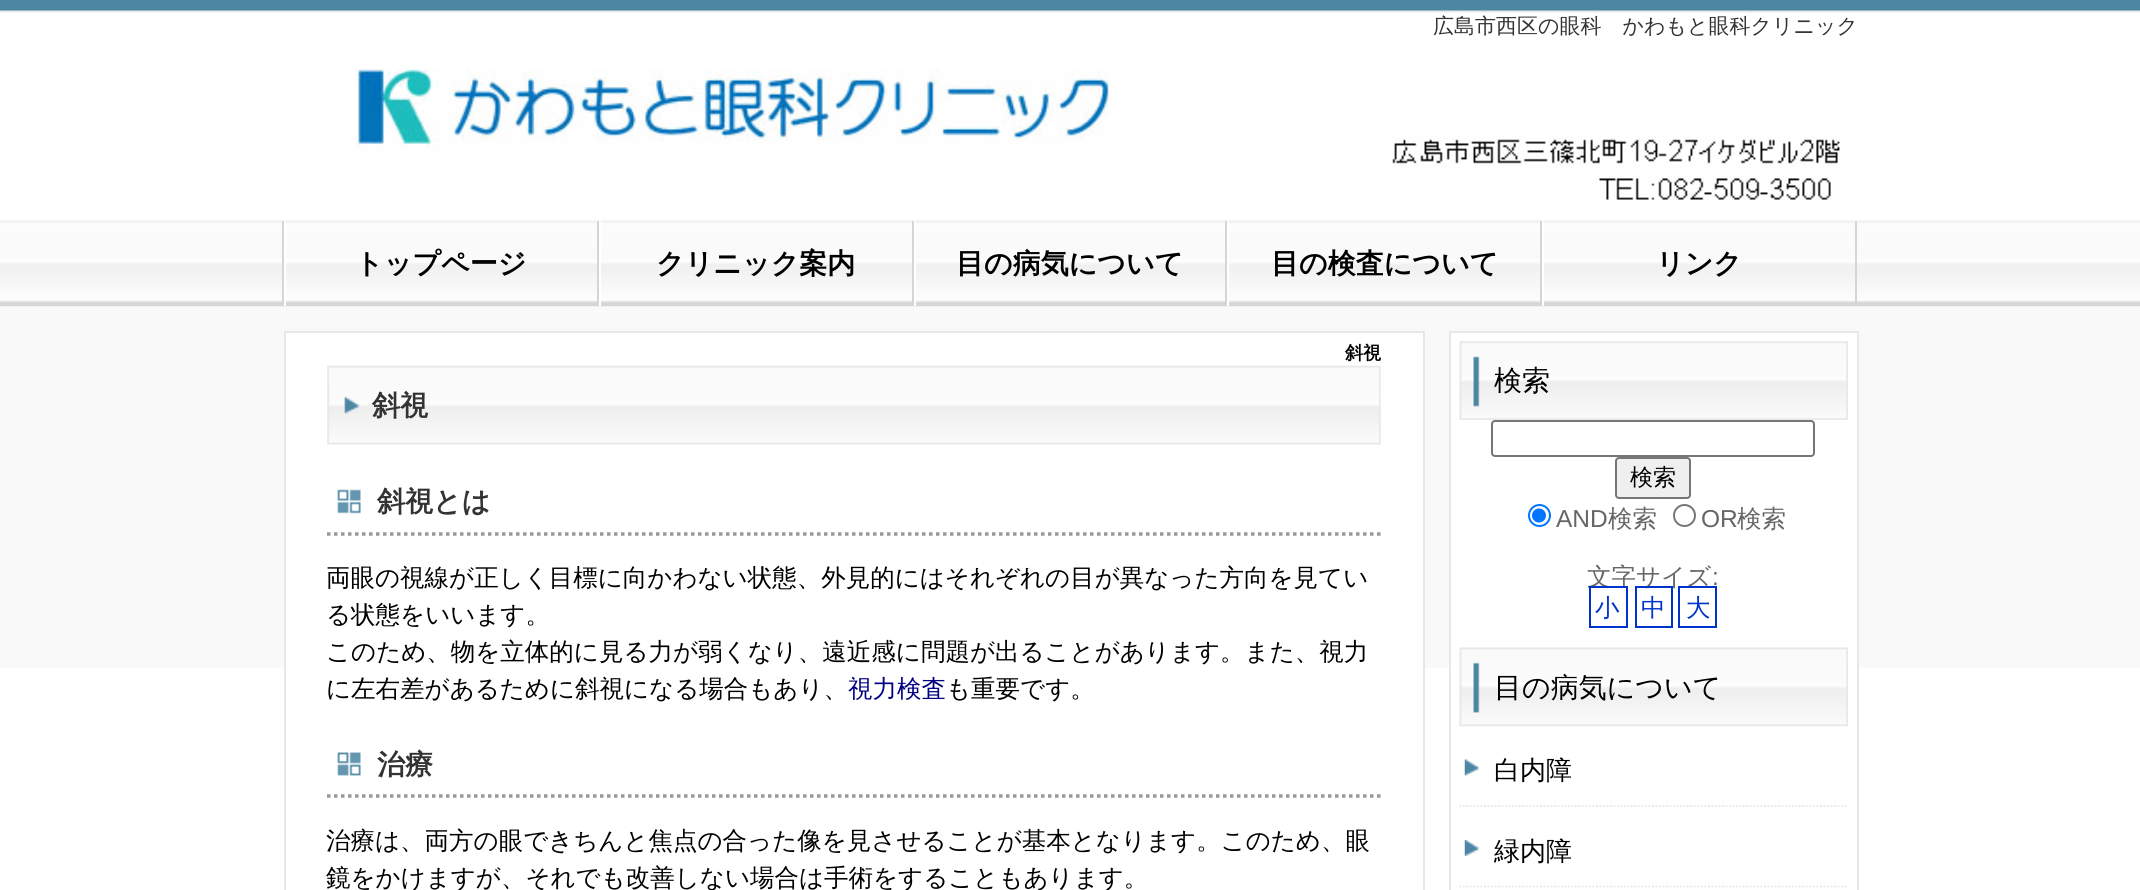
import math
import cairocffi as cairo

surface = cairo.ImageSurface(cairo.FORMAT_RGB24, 2140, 890)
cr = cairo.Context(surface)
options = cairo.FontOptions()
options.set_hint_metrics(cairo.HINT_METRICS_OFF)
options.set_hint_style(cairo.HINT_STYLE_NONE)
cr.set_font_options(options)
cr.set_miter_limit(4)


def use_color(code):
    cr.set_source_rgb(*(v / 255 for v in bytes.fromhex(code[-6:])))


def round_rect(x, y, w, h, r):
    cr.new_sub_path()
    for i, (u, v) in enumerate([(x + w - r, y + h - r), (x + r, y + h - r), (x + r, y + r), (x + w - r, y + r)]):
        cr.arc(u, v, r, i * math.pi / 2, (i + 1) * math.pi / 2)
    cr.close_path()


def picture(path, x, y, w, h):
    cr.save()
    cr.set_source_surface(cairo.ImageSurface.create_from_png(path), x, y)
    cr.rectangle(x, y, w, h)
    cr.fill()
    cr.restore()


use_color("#ffffff")
cr.paint()
picture("img1.png", 0, 0, 2140, 668)
cr.select_font_face("WenQuanYi Zen Hei Medium")
cr.set_font_size(21)
use_color("#333333")
cr.move_to(1433, 33)
cr.show_text("広島市西区の眼科　かわもと眼科クリニック")
picture("img2.png", 355, 69, 1485, 131)
picture("img3.png", 0, 220, 2140, 87)
use_color("#d5d5d5")
cr.rectangle(282, 221, 2, 85)
cr.fill()
cr.rectangle(597, 221, 2, 85)
cr.fill()
use_color("#ffffff")
cr.rectangle(284, 221, 2, 85)
cr.fill()
cr.select_font_face("WenQuanYi Zen Hei", cairo.FONT_SLANT_NORMAL, cairo.FONT_WEIGHT_BOLD)
cr.set_font_size(28)
use_color("#000000")
cr.move_to(355, 273)
cr.show_text("トップページ")
use_color("#d5d5d5")
cr.rectangle(912, 221, 2, 85)
cr.fill()
use_color("#ffffff")
cr.rectangle(599, 221, 2, 85)
cr.fill()
use_color("#000000")
cr.move_to(656, 273)
cr.show_text("クリニック案内")
use_color("#d5d5d5")
cr.rectangle(1225, 221, 2, 85)
cr.fill()
use_color("#ffffff")
cr.rectangle(914, 221, 2, 85)
cr.fill()
use_color("#000000")
cr.move_to(956, 273)
cr.show_text("目の病気について")
use_color("#d5d5d5")
cr.rectangle(1540, 221, 2, 85)
cr.fill()
use_color("#ffffff")
cr.rectangle(1227, 221, 2, 85)
cr.fill()
use_color("#000000")
cr.move_to(1271, 273)
cr.show_text("目の検査について")
use_color("#d5d5d5")
cr.rectangle(1855, 221, 2, 85)
cr.fill()
use_color("#ffffff")
cr.rectangle(1542, 221, 2, 85)
cr.fill()
use_color("#000000")
cr.move_to(1656, 273)
cr.show_text("リンク")
use_color("#ffffff")
cr.rectangle(286, 333, 1137, 335)
cr.fill()
cr.rectangle(285, 332, 1139, 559)
use_color("#e7e7e7")
cr.stroke()
cr.set_font_size(18)
use_color("#000000")
cr.move_to(1345, 359)
cr.show_text("斜視")
picture("img4.png", 327, 365, 1054, 80)
cr.set_font_size(28)
use_color("#333333")
cr.move_to(372, 415)
cr.show_text("斜視")
picture("img5.png", 337, 489, 24, 25)
cr.new_path()
cr.move_to(327, 534)
cr.line_to(1381, 534)
use_color("#999999")
cr.set_line_width(3.5)
cr.set_dash([3.5, 3.5])
cr.stroke()
use_color("#333333")
cr.move_to(377, 511)
cr.show_text("斜視とは")
cr.select_font_face("WenQuanYi Zen Hei Medium")
cr.set_font_size(24.5)
use_color("#000000")
cr.move_to(326, 586)
cr.show_text("両眼の視線が正しく目標に向かわない状態、外見的にはそれぞれの目が異なった方向を見てい")
cr.move_to(326, 623)
cr.show_text("る状態をいいます。")
cr.move_to(326, 660)
cr.show_text("このため、物を立体的に見る力が弱くなり、遠近感に問題が出ることがあります。また、視力")
cr.move_to(326, 697)
cr.show_text("に左右差があるために斜視になる場合もあり、")
use_color("#000080")
cr.move_to(848, 697)
cr.show_text("視力検査")
use_color("#000000")
cr.move_to(946, 697)
cr.show_text("も重要です。")
picture("img6.png", 337, 752, 24, 24)
cr.new_path()
cr.move_to(327, 796)
cr.line_to(1381, 796)
use_color("#999999")
cr.stroke()
cr.select_font_face("WenQuanYi Zen Hei", cairo.FONT_SLANT_NORMAL, cairo.FONT_WEIGHT_BOLD)
cr.set_font_size(28)
use_color("#333333")
cr.move_to(377, 774)
cr.show_text("治療")
cr.select_font_face("WenQuanYi Zen Hei Medium")
cr.set_font_size(24.5)
use_color("#000000")
cr.move_to(326, 849)
cr.show_text("治療は、両方の眼できちんと焦点の合った像を見させることが基本となります。このため、眼")
cr.move_to(326, 886)
cr.show_text("鏡をかけますが、それでも改善しない場合は手術をすることもあります。")
use_color("#ffffff")
cr.rectangle(1451, 333, 406, 335)
cr.fill()
cr.rectangle(1450, 332, 408, 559)
use_color("#e7e7e7")
cr.set_line_width(2)
cr.set_dash([])
cr.stroke()
picture("img7.png", 1459, 341, 389, 79)
cr.set_font_size(28)
use_color("#000000")
cr.move_to(1494, 390)
cr.show_text("検索")
round_rect(1492, 421, 322, 35, 3)
use_color("#767676")
cr.stroke()
use_color("#efefef")
round_rect(1616, 458, 74, 40, 3)
cr.fill_preserve()
use_color("#767676")
cr.stroke()
cr.set_font_size(23)
use_color("#000000")
cr.move_to(1630, 485)
cr.show_text("検索")
cr.new_path()
cr.arc(1539.5, 515.5, 10.5, 0, 2 * math.pi)
use_color("#0075ff")
cr.stroke()
cr.arc(1539, 515.5, 7, 0, 2 * math.pi)
cr.fill()
cr.select_font_face("Liberation Sans")
cr.set_font_size(24.5)
use_color("#666666")
cr.move_to(1556, 527)
cr.show_text("AND")
cr.select_font_face("WenQuanYi Zen Hei Medium")
cr.move_to(1608, 527)
cr.show_text("検索")
cr.new_path()
cr.arc(1684.5, 515.5, 10.5, 0, 2 * math.pi)
use_color("#767676")
cr.stroke()
cr.select_font_face("Liberation Sans")
use_color("#666666")
cr.move_to(1701, 527)
cr.show_text("OR")
cr.select_font_face("WenQuanYi Zen Hei Medium")
cr.move_to(1737, 527)
cr.show_text("検索")
cr.move_to(1587, 585)
cr.show_text("文字サイズ")
cr.select_font_face("Liberation Sans")
cr.move_to(1712, 585)
cr.show_text(":")
cr.rectangle(1590, 587, 37, 40)
use_color("#0033cc")
cr.stroke()
cr.select_font_face("WenQuanYi Zen Hei Medium")
cr.move_to(1595, 616)
cr.show_text("小")
cr.rectangle(1636, 587, 36, 40)
cr.stroke()
cr.move_to(1641, 616)
cr.show_text("中")
cr.rectangle(1679, 587, 37, 40)
cr.stroke()
cr.move_to(1686, 616)
cr.show_text("大")
picture("img8.png", 1459, 647, 389, 80)
cr.set_font_size(28)
use_color("#000000")
cr.move_to(1494, 697)
cr.show_text("目の病気について")
picture("img9.png", 1464, 759, 15, 17)
cr.new_path()
cr.move_to(1459.5, 806)
cr.line_to(1848, 806)
use_color("#e7e7e7")
cr.set_line_width(1.8)
cr.set_dash([1.75, 1.75])
cr.stroke()
cr.set_font_size(26)
use_color("#000000")
cr.move_to(1494, 779)
cr.show_text("白内障")
picture("img10.png", 1464, 840, 15, 16)
cr.new_path()
cr.move_to(1459.5, 886.5)
cr.line_to(1848, 886.5)
use_color("#e7e7e7")
cr.stroke()
use_color("#000000")
cr.move_to(1494, 860)
cr.show_text("緑内障")
surface.write_to_png("result.png")
